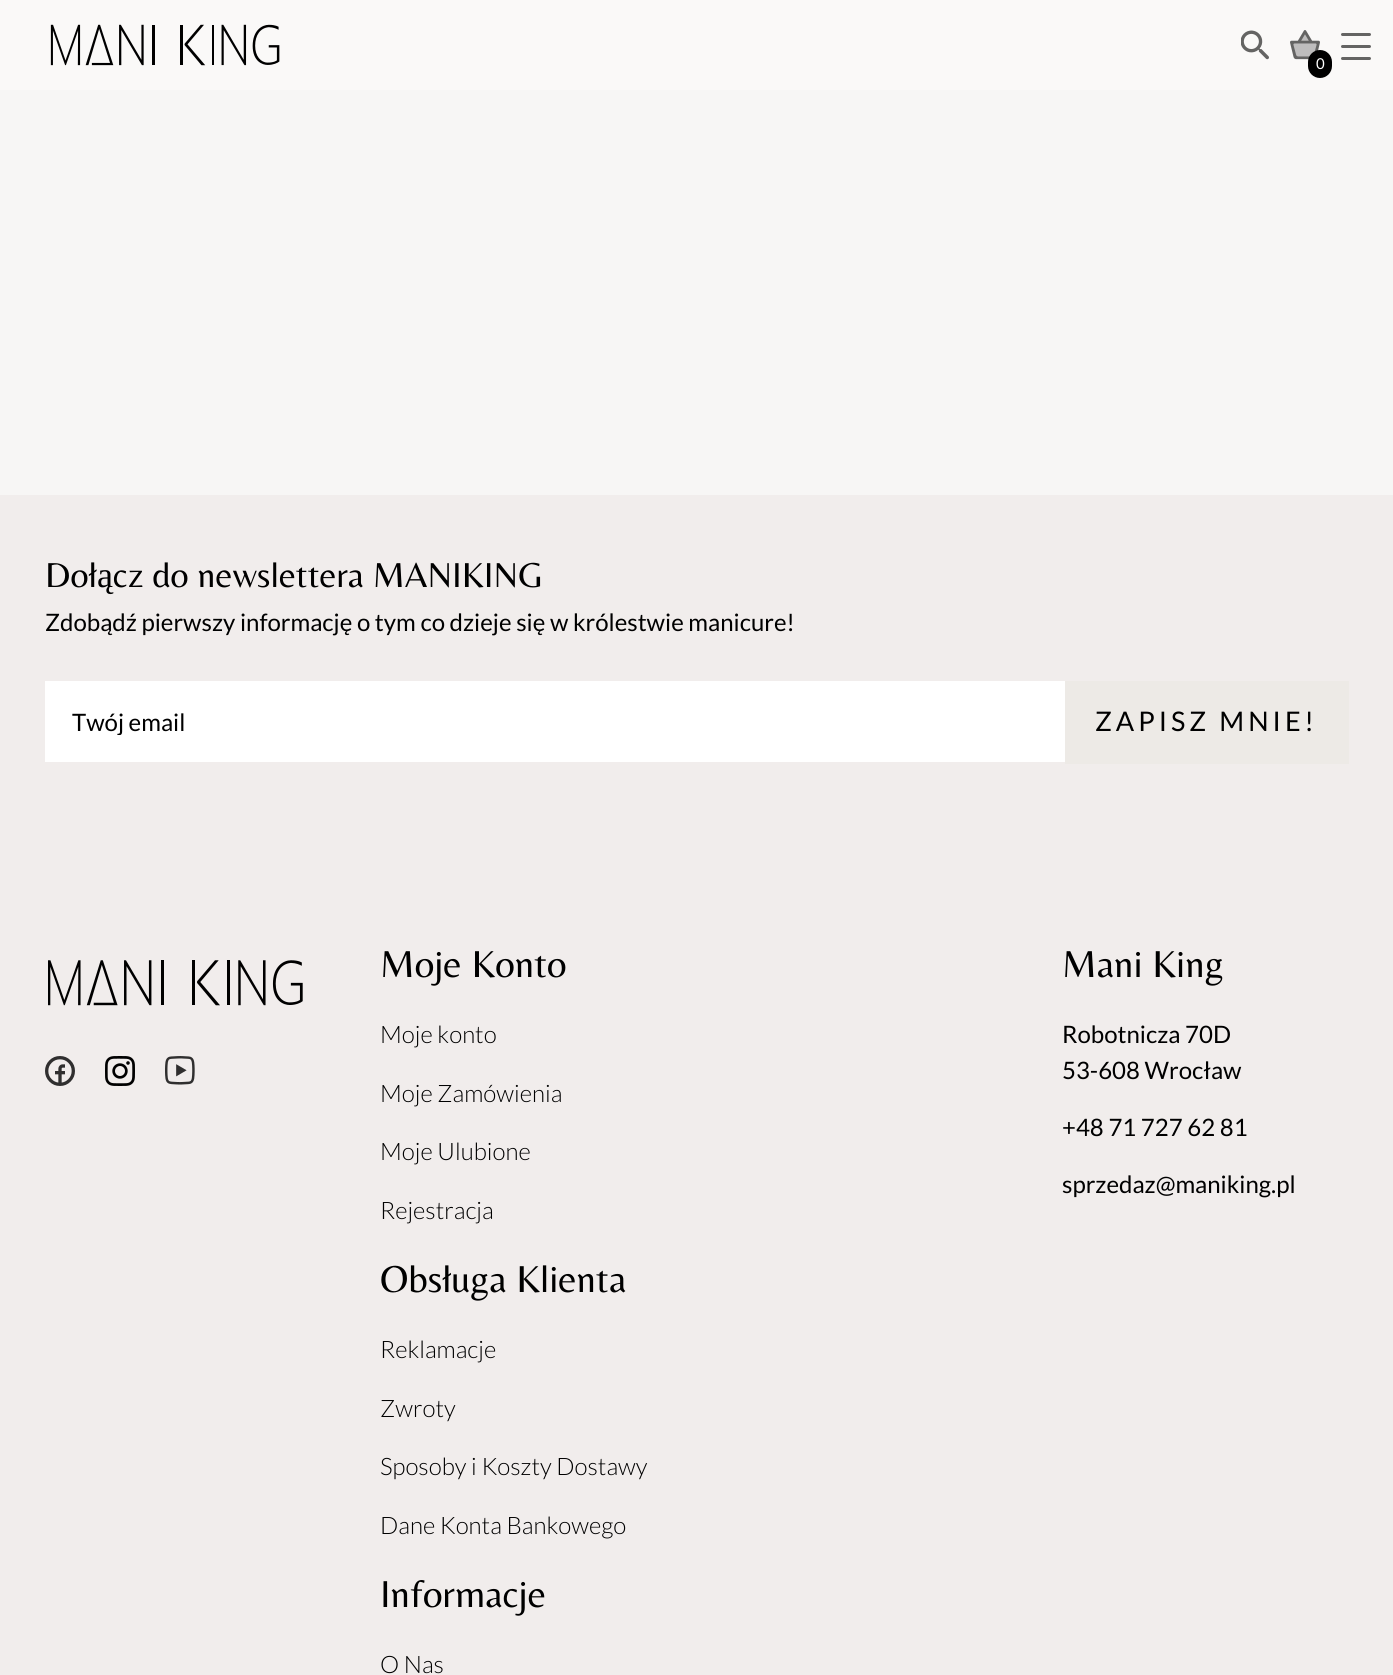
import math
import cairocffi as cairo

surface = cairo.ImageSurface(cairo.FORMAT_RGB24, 1393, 1675)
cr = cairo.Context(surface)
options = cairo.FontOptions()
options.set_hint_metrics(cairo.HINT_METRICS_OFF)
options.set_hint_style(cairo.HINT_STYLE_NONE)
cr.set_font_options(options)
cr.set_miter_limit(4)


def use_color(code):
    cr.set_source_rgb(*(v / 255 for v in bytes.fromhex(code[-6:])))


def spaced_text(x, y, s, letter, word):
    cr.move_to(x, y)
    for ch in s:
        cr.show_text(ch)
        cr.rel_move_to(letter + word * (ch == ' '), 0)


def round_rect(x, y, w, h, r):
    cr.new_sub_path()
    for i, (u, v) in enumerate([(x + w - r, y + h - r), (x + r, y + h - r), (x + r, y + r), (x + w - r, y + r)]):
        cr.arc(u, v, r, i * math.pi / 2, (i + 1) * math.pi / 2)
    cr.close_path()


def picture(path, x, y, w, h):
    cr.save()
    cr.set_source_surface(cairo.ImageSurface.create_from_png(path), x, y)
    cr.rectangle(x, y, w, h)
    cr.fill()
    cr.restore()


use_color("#f7f6f5")
cr.paint()
use_color("#faf9f8")
cr.rectangle(0, 0, 1393, 90)
cr.fill()
picture("img1.png", 50, 24, 230, 42)
picture("img2.png", 1241, 30, 28, 30)
use_color("#646463")
round_rect(1341, 33, 30, 3, 1.5)
cr.fill()
round_rect(1341, 45, 30, 3, 1.5)
cr.fill()
round_rect(1341, 57, 30, 3, 1.5)
cr.fill()
picture("img3.png", 1290, 30, 30, 30)
use_color("#000000")
round_rect(1308, 50, 24, 28, 12)
cr.fill()
cr.select_font_face("Lato")
cr.set_font_size(15)
use_color("#ffffff")
cr.move_to(1316, 69)
cr.show_text("0")
use_color("#f1edec")
cr.rectangle(0, 495, 1393, 1180)
cr.fill()
cr.select_font_face("Belleza")
cr.set_font_size(36)
use_color("#000000")
cr.move_to(45, 587)
cr.show_text("Doł")
cr.select_font_face("Liberation Serif")
cr.move_to(97, 587)
cr.show_text("ą")
cr.select_font_face("Belleza")
cr.move_to(113, 587)
cr.show_text("cz do newslettera MANIKING")
cr.select_font_face("Lato")
cr.set_font_size(24)
cr.move_to(45, 631)
cr.show_text("Zdobądź pierwszy informację o tym co dzieje się w królestwie manicure!")
use_color("#ffffff")
cr.rectangle(45, 681, 1020, 81)
cr.fill()
cr.save()
cr.rectangle(72, 707, 966, 28)
cr.clip()
use_color("#000000")
cr.move_to(72, 731)
cr.show_text("Twój email")
cr.restore()
use_color("#edeae6")
cr.rectangle(1065, 681, 284, 83)
cr.fill()
cr.set_font_size(27)
use_color("#000000")
spaced_text(1095, 731, "ZAPISZ MNIE!", 4, 0)
picture("img4.png", 48, 960, 255, 46)
picture("img5.png", 45, 1056, 30, 30)
picture("img6.png", 105, 1056, 30, 30)
picture("img7.png", 165, 1056, 30, 29)
cr.select_font_face("Belleza")
cr.set_font_size(39)
cr.move_to(380, 977)
cr.show_text("Moje Konto")
cr.select_font_face("Lato Light")
cr.set_font_size(24)
cr.move_to(380, 1043)
cr.show_text("Moje konto")
cr.move_to(380, 1102)
cr.show_text("Moje Zamówienia")
cr.move_to(380, 1160)
cr.show_text("Moje Ulubione")
cr.move_to(380, 1219)
cr.show_text("Rejestracja")
cr.select_font_face("Belleza")
cr.set_font_size(39)
cr.move_to(380, 1292)
cr.show_text("Obsługa Klienta")
cr.select_font_face("Lato Light")
cr.set_font_size(24)
cr.move_to(380, 1358)
cr.show_text("Reklamacje")
cr.move_to(380, 1417)
cr.show_text("Zwroty")
cr.move_to(380, 1475)
cr.show_text("Sposoby i Koszty Dostawy")
cr.move_to(380, 1534)
cr.show_text("Dane Konta Bankowego")
cr.select_font_face("Belleza")
cr.set_font_size(39)
cr.move_to(380, 1607)
cr.show_text("Informacje")
cr.select_font_face("Lato Light")
cr.set_font_size(24)
cr.move_to(380, 1673)
cr.show_text("O Nas")
cr.select_font_face("Belleza")
cr.set_font_size(39)
cr.move_to(1062, 977)
cr.show_text("Mani King")
cr.select_font_face("Lato")
cr.set_font_size(24)
cr.move_to(1062, 1043)
cr.show_text("Robotnicza 70D")
cr.move_to(1062, 1079)
cr.show_text("53-608 Wrocław")
cr.move_to(1062, 1136)
cr.show_text("+48 71 727 62 81")
cr.move_to(1062, 1193)
cr.show_text("sprzedaz@maniking.pl")
surface.write_to_png("result.png")
